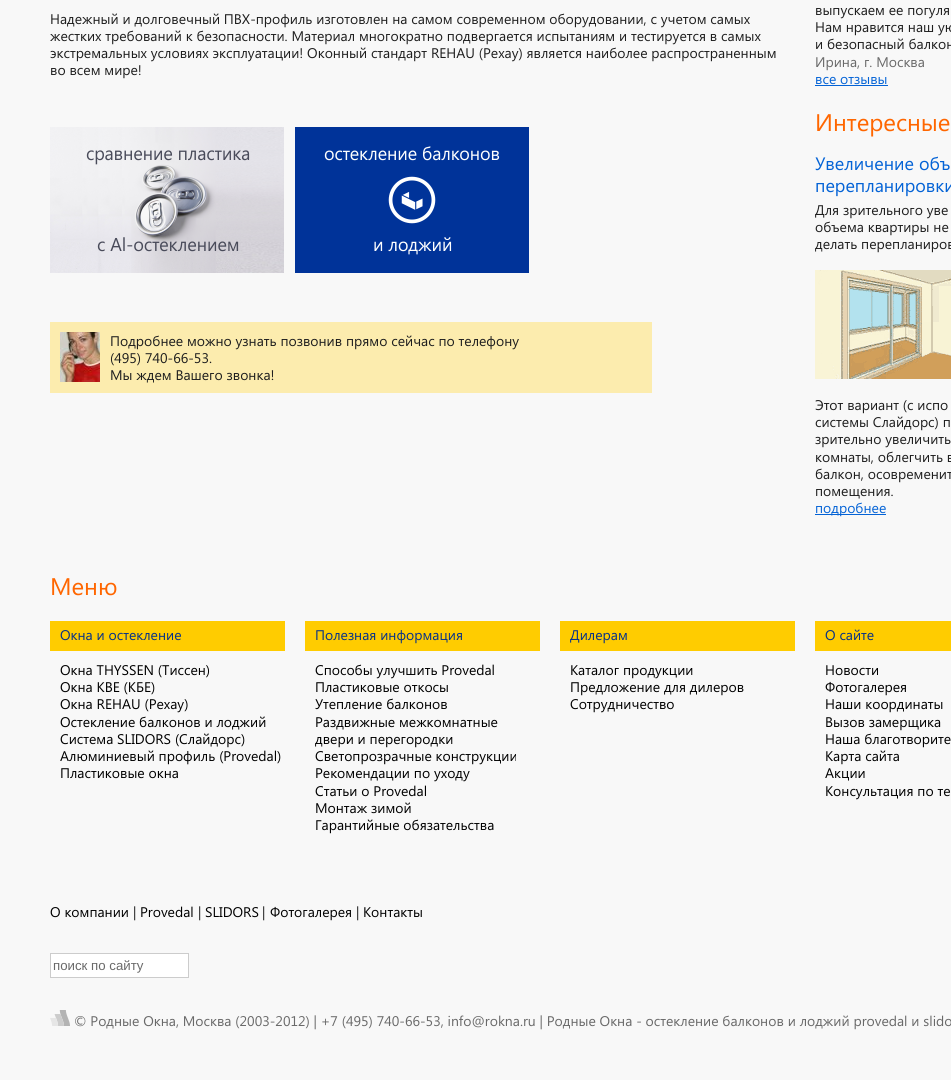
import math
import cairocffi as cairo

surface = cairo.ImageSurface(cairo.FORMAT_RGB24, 951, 1080)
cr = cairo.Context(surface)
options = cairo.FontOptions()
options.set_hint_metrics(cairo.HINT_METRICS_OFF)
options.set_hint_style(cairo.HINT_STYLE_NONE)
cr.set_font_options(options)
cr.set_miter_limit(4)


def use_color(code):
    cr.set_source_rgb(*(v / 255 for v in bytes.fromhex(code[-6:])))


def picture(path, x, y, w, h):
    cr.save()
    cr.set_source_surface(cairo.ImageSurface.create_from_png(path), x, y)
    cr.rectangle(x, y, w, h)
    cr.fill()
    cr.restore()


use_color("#f8f8f8")
cr.paint()
cr.select_font_face("Segoe UI")
cr.set_font_size(14)
use_color("#1e1e1e")
cr.move_to(50, 24)
cr.show_text("Надежный и долговечный ПВХ-профиль изготовлен на самом современном оборудовании, с учетом самых")
cr.move_to(50, 41)
cr.show_text("жестких требований к безопасности. Материал многократно подвергается испытаниям и тестируется в самых")
cr.move_to(50, 58)
cr.show_text("экстремальных условиях эксплуатации! Оконный стандарт REHAU (Рехау) является наиболее распространенным")
cr.move_to(50, 75)
cr.show_text("во всем мире!")
picture("img1.png", 50, 127, 234, 146)
picture("img2.png", 295, 127, 234, 146)
use_color("#fcecae")
cr.rectangle(50, 322, 602, 71)
cr.fill()
picture("img3.png", 60, 332, 40, 50)
use_color("#1e1e1e")
cr.move_to(110, 346)
cr.show_text("Подробнее можно узнать позвонив прямо сейчас по телефону")
cr.move_to(110, 363)
cr.show_text("(495) 740-66-53.")
cr.move_to(110, 380)
cr.show_text("Мы ждем Вашего звонка!")
cr.move_to(815, 15)
cr.show_text("выпускаем ее погуля")
cr.move_to(815, 32)
cr.show_text("Нам нравится наш ую")
cr.move_to(815, 49)
cr.show_text("и безопасный балкон")
use_color("#696969")
cr.move_to(815, 67)
cr.show_text("Ирина, г. Москва")
use_color("#0463d6")
cr.move_to(815, 84)
cr.show_text("все отзывы")
cr.rectangle(815, 85, 73, 1)
cr.fill()
cr.set_font_size(24)
use_color("#ff6600")
cr.move_to(815, 131)
cr.show_text("Интересные")
cr.set_font_size(18)
use_color("#0463d6")
cr.move_to(815, 170)
cr.show_text("Увеличение объ")
cr.move_to(815, 192)
cr.show_text("перепланировки")
cr.set_font_size(14)
use_color("#1e1e1e")
cr.move_to(815, 215)
cr.show_text("Для зрительного уве")
cr.move_to(815, 232)
cr.show_text("объема квартиры не")
cr.move_to(815, 249)
cr.show_text("делать перепланиров")
picture("img4.png", 815, 270, 136, 109)
cr.move_to(815, 410)
cr.show_text("Этот вариант (с испо")
cr.move_to(815, 427)
cr.show_text("системы Слайдорс) п")
cr.move_to(815, 444)
cr.show_text("зрительно увеличить")
cr.move_to(815, 462)
cr.show_text("комнаты, облегчить в")
cr.move_to(815, 479)
cr.show_text("балкон, осовременит")
cr.move_to(815, 496)
cr.show_text("помещения.")
use_color("#0463d6")
cr.rectangle(815, 514, 71, 1)
cr.fill()
cr.move_to(815, 513)
cr.show_text("подробнее")
cr.set_font_size(24)
use_color("#ff6600")
cr.move_to(50, 595)
cr.show_text("Меню")
use_color("#ffcc00")
cr.rectangle(50, 621, 235, 30)
cr.fill()
cr.set_font_size(14)
use_color("#053189")
cr.move_to(60, 640)
cr.show_text("Окна и остекление")
use_color("#000000")
cr.move_to(60, 675)
cr.show_text("Окна THYSSEN (Тиссен)")
cr.move_to(60, 692)
cr.show_text("Окна KBE (КБЕ)")
cr.move_to(60, 709)
cr.show_text("Окна REHAU (Рехау)")
cr.move_to(60, 727)
cr.show_text("Остекление балконов и лоджий")
cr.move_to(60, 744)
cr.show_text("Система SLIDORS (Слайдорс)")
cr.move_to(60, 761)
cr.show_text("Алюминиевый профиль (Provedal)")
cr.move_to(60, 778)
cr.show_text("Пластиковые окна")
use_color("#ffcc00")
cr.rectangle(305, 621, 235, 30)
cr.fill()
use_color("#053189")
cr.move_to(315, 640)
cr.show_text("Полезная информация")
use_color("#000000")
cr.move_to(315, 675)
cr.show_text("Способы улучшить Provedal")
cr.move_to(315, 692)
cr.show_text("Пластиковые откосы")
cr.move_to(315, 709)
cr.show_text("Утепление балконов")
cr.move_to(315, 727)
cr.show_text("Раздвижные межкомнатные")
cr.move_to(315, 744)
cr.show_text("двери и перегородки")
cr.move_to(315, 761)
cr.show_text("Светопрозрачные конструкции")
cr.move_to(315, 778)
cr.show_text("Рекомендации по уходу")
cr.move_to(315, 796)
cr.show_text("Статьи о Provedal")
cr.move_to(315, 813)
cr.show_text("Монтаж зимой")
cr.move_to(315, 830)
cr.show_text("Гарантийные обязательства")
use_color("#ffcc00")
cr.rectangle(560, 621, 235, 30)
cr.fill()
use_color("#053189")
cr.move_to(570, 640)
cr.show_text("Дилерам")
use_color("#000000")
cr.move_to(570, 675)
cr.show_text("Каталог продукции")
cr.move_to(570, 692)
cr.show_text("Предложение для дилеров")
cr.move_to(570, 709)
cr.show_text("Сотрудничество")
use_color("#ffcc00")
cr.rectangle(815, 621, 136, 30)
cr.fill()
use_color("#053189")
cr.move_to(825, 640)
cr.show_text("О сайте")
use_color("#000000")
cr.move_to(825, 675)
cr.show_text("Новости")
cr.move_to(825, 692)
cr.show_text("Фотогалерея")
cr.move_to(825, 709)
cr.show_text("Наши координаты")
cr.move_to(825, 727)
cr.show_text("Вызов замерщика")
cr.move_to(825, 744)
cr.show_text("Наша благотворите")
cr.move_to(825, 761)
cr.show_text("Карта сайта")
cr.move_to(825, 778)
cr.show_text("Акции")
cr.move_to(825, 796)
cr.show_text("Консультация по те")
cr.move_to(50, 917)
cr.show_text("О компании")
use_color("#1e1e1e")
cr.move_to(133, 917)
cr.show_text("|")
use_color("#000000")
cr.move_to(140, 917)
cr.show_text("Provedal")
use_color("#1e1e1e")
cr.move_to(198, 917)
cr.show_text("|")
use_color("#000000")
cr.move_to(205, 917)
cr.show_text("SLIDORS")
use_color("#1e1e1e")
cr.move_to(262, 917)
cr.show_text("|")
use_color("#000000")
cr.move_to(270, 917)
cr.show_text("Фотогалерея")
use_color("#1e1e1e")
cr.move_to(356, 917)
cr.show_text("|")
use_color("#000000")
cr.move_to(363, 917)
cr.show_text("Контакты")
use_color("#ffffff")
cr.rectangle(50.5, 953.5, 138, 24)
cr.fill_preserve()
use_color("#cccccc")
cr.set_line_width(1)
cr.stroke()
cr.select_font_face("Liberation Sans")
cr.set_font_size(13.25)
use_color("#696969")
cr.move_to(53, 970)
cr.show_text("поиск по сайту")
picture("img5.png", 50, 1010, 20, 16)
cr.select_font_face("Segoe UI")
cr.set_font_size(14)
cr.move_to(74, 1026)
cr.show_text("© Родные Окна, Москва (2003-2012) | +7 (495) 740-66-53, info@rokna.ru | Родные Окна - остекление балконов и лоджий provedal и slido")
surface.write_to_png("result.png")
